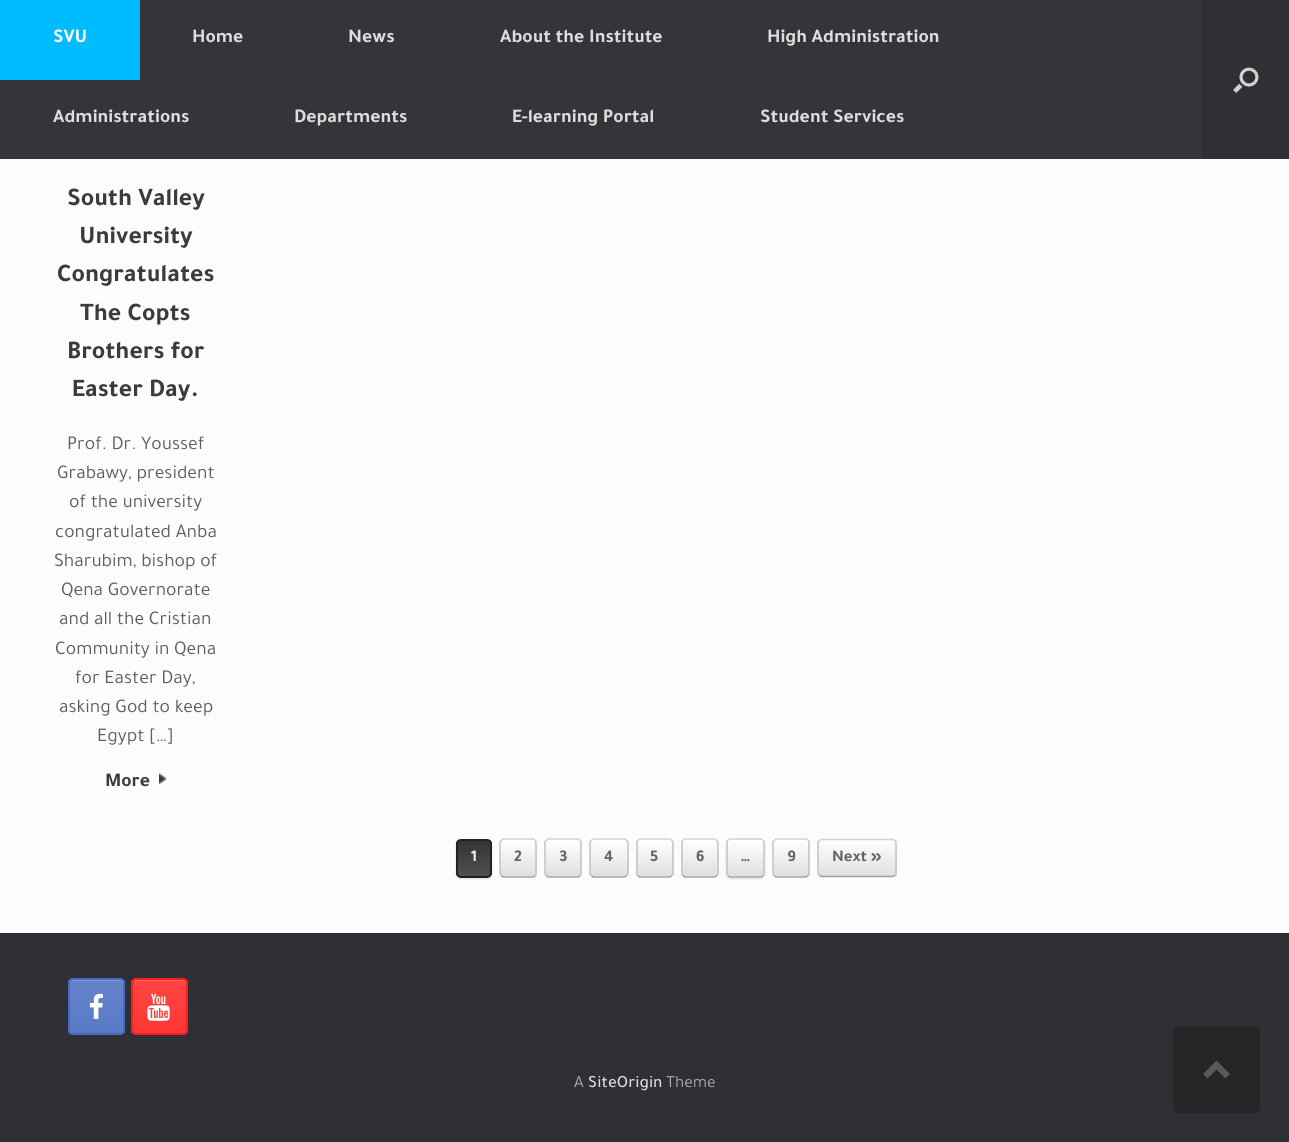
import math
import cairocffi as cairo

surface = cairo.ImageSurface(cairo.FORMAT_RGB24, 1289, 1142)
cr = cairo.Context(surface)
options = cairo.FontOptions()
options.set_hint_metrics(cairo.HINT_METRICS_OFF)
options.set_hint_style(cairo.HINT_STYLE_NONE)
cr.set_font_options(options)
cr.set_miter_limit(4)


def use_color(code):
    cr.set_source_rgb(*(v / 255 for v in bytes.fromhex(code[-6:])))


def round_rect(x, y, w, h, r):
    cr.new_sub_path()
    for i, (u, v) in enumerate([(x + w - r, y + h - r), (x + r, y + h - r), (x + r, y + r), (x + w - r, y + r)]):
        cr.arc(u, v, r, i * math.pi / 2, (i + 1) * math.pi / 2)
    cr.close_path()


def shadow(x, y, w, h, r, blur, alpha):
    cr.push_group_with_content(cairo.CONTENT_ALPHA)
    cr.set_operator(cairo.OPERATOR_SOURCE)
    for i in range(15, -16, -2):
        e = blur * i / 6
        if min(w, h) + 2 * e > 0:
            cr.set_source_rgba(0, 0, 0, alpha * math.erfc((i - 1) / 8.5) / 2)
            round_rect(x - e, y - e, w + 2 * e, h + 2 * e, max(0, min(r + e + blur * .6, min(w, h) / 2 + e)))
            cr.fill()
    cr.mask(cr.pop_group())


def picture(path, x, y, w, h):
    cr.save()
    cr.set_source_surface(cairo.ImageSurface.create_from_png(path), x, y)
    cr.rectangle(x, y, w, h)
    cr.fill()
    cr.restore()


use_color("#2f3033")
cr.paint()
use_color("#343538")
cr.rectangle(0, 0, 1202, 159)
cr.fill()
use_color("#00bcff")
cr.rectangle(0, 0, 140, 80)
cr.fill()
cr.select_font_face("Tajawal", cairo.FONT_SLANT_NORMAL, cairo.FONT_WEIGHT_BOLD)
cr.set_font_size(19.5)
use_color("#ffffff")
cr.move_to(53, 42)
cr.show_text("SVU")
use_color("#dddddd")
cr.move_to(192, 42)
cr.show_text("Home")
cr.move_to(348, 42)
cr.show_text("News")
cr.move_to(500, 42)
cr.show_text("About the Institute")
cr.move_to(767, 42)
cr.show_text("High Administration")
cr.move_to(53, 122)
cr.show_text("Administrations")
cr.move_to(294, 122)
cr.show_text("Departments")
cr.move_to(512, 122)
cr.show_text("E-learning Portal")
cr.move_to(760, 122)
cr.show_text("Student Services")
picture("img1.png", 1233, 67, 26, 26)
use_color("#fcfcfc")
cr.rectangle(0, 159, 1289, 774)
cr.fill()
cr.set_font_size(25.5)
use_color("#3b3b3b")
cr.move_to(67, 205)
cr.show_text("South Valley")
cr.move_to(79, 243)
cr.show_text("University")
cr.move_to(57, 281)
cr.show_text("Congratulates")
cr.move_to(80, 320)
cr.show_text("The Copts")
cr.move_to(67, 358)
cr.show_text("Brothers for")
cr.move_to(72, 396)
cr.show_text("Easter Day.")
cr.select_font_face("Tajawal")
cr.set_font_size(19.5)
use_color("#5e5e5e")
cr.move_to(67, 449)
cr.show_text("Prof. Dr. Youssef")
cr.move_to(57, 478)
cr.show_text("Grabawy, president")
cr.move_to(69, 507)
cr.show_text("of the university")
cr.move_to(55, 537)
cr.show_text("congratulated Anba")
cr.move_to(54, 566)
cr.show_text("Sharubim, bishop of")
cr.move_to(61, 595)
cr.show_text("Qena Governorate")
cr.move_to(59, 624)
cr.show_text("and all the Cristian")
cr.move_to(55, 654)
cr.show_text("Community in Qena")
cr.move_to(75, 683)
cr.show_text("for Easter Day,")
cr.move_to(59, 712)
cr.show_text("asking God to keep")
cr.move_to(97, 741)
cr.show_text("Egypt […]")
cr.select_font_face("Tajawal", cairo.FONT_SLANT_NORMAL, cairo.FONT_WEIGHT_BOLD)
use_color("#3b3b3b")
cr.move_to(105, 786)
cr.show_text("More")
picture("img2.png", 159, 773, 8, 12)
use_color("#000000")
shadow(456, 840, 36, 39, 5, 1, 0.12)
cr.save()
round_rect(456, 839, 36, 39, 5)
cr.clip()
gradient = cairo.LinearGradient(458, 876, 458, 840)
gradient.add_color_stop_rgba(0, 0.314, 0.314, 0.314, 1)
gradient.add_color_stop_rgba(1, 0.2, 0.2, 0.2, 1)
cr.set_source(gradient)
cr.rectangle(456, 840, 36, 36)
cr.fill()
cr.restore()
round_rect(457, 840, 34, 37, 4)
use_color("#222222")
cr.stroke()
cr.set_font_size(16.5)
use_color("#efefef")
cr.move_to(471, 861)
cr.show_text("1")
cr.save()
round_rect(500, 839, 37, 39, 5)
cr.clip()
gradient = cairo.LinearGradient(501, 876, 501, 840)
gradient.add_color_stop_rgba(0, 0.875, 0.875, 0.875, 1)
gradient.add_color_stop_rgba(1, 1, 1, 1, 1)
cr.set_source(gradient)
cr.rectangle(500, 840, 37, 36)
cr.fill()
gradient = cairo.LinearGradient(501, 912, 501, 876)
gradient.add_color_stop_rgba(0, 0.875, 0.875, 0.875, 1)
gradient.add_color_stop_rgba(1, 1, 1, 1, 1)
cr.set_source(gradient)
cr.rectangle(500, 876, 37, 2)
cr.fill()
cr.restore()
cr.new_path()
cr.move_to(501.5, 840.5)
cr.curve_to(502, 839.5, 503, 839, 504, 839)
cr.line_to(532.5, 839)
cr.curve_to(533.5, 839, 534.5, 839.5, 535, 840.5)
use_color("#d2d2d2")
cr.set_line_width(1.5)
cr.stroke()
cr.new_path()
cr.move_to(535, 840.5)
cr.curve_to(536, 841, 536, 842, 536, 843)
cr.line_to(536, 873)
cr.curve_to(536, 874, 536, 875, 535, 875.5)
use_color("#c3c3c3")
cr.stroke()
cr.new_path()
cr.move_to(535, 875.5)
cr.curve_to(534.5, 876.5, 533.5, 877, 532.5, 877)
cr.line_to(504, 877)
cr.curve_to(503, 877, 502, 876.5, 501.5, 875.5)
use_color("#9f9f9f")
cr.stroke()
cr.new_path()
cr.move_to(501.5, 875.5)
cr.curve_to(500.5, 875, 500, 874, 500, 873)
cr.line_to(500, 843)
cr.curve_to(500, 842, 500.5, 841, 501.5, 840.5)
use_color("#c3c3c3")
cr.stroke()
use_color("#646464")
cr.move_to(514, 861)
cr.show_text("2")
cr.save()
round_rect(545, 839, 37, 39, 5)
cr.clip()
gradient = cairo.LinearGradient(546, 876, 546, 840)
gradient.add_color_stop_rgba(0, 0.875, 0.875, 0.875, 1)
gradient.add_color_stop_rgba(1, 1, 1, 1, 1)
cr.set_source(gradient)
cr.rectangle(545, 840, 37, 36)
cr.fill()
gradient = cairo.LinearGradient(546, 912, 546, 876)
gradient.add_color_stop_rgba(0, 0.875, 0.875, 0.875, 1)
gradient.add_color_stop_rgba(1, 1, 1, 1, 1)
cr.set_source(gradient)
cr.rectangle(545, 876, 37, 2)
cr.fill()
cr.restore()
cr.new_path()
cr.move_to(546.5, 840.5)
cr.curve_to(547, 839.5, 548, 839, 549, 839)
cr.line_to(577.5, 839)
cr.curve_to(578.5, 839, 579.5, 839.5, 580, 840.5)
use_color("#d2d2d2")
cr.stroke()
cr.new_path()
cr.move_to(580, 840.5)
cr.curve_to(581, 841, 581, 842, 581, 843)
cr.line_to(581, 873)
cr.curve_to(581, 874, 581, 875, 580, 875.5)
use_color("#c3c3c3")
cr.stroke()
cr.new_path()
cr.move_to(580, 875.5)
cr.curve_to(579.5, 876.5, 578.5, 877, 577.5, 877)
cr.line_to(549, 877)
cr.curve_to(548, 877, 547, 876.5, 546.5, 875.5)
use_color("#9f9f9f")
cr.stroke()
cr.new_path()
cr.move_to(546.5, 875.5)
cr.curve_to(545.5, 875, 545, 874, 545, 873)
cr.line_to(545, 843)
cr.curve_to(545, 842, 545.5, 841, 546.5, 840.5)
use_color("#c3c3c3")
cr.stroke()
use_color("#646464")
cr.move_to(559, 861)
cr.show_text("3")
cr.save()
round_rect(590, 839, 39, 39, 5)
cr.clip()
gradient = cairo.LinearGradient(591, 876, 591, 840)
gradient.add_color_stop_rgba(0, 0.875, 0.875, 0.875, 1)
gradient.add_color_stop_rgba(1, 1, 1, 1, 1)
cr.set_source(gradient)
cr.rectangle(590, 840, 39, 36)
cr.fill()
gradient = cairo.LinearGradient(591, 912, 591, 876)
gradient.add_color_stop_rgba(0, 0.875, 0.875, 0.875, 1)
gradient.add_color_stop_rgba(1, 1, 1, 1, 1)
cr.set_source(gradient)
cr.rectangle(590, 876, 39, 2)
cr.fill()
cr.restore()
cr.new_path()
cr.move_to(591.5, 840.5)
cr.curve_to(592, 839.5, 593, 839, 594, 839)
cr.line_to(624, 839)
cr.curve_to(625, 839, 626, 839.5, 626.5, 840.5)
use_color("#d2d2d2")
cr.stroke()
cr.new_path()
cr.move_to(626.5, 840.5)
cr.curve_to(627.5, 841, 628, 842, 628, 843)
cr.line_to(628, 873)
cr.curve_to(628, 874, 627.5, 875, 626.5, 875.5)
use_color("#c3c3c3")
cr.stroke()
cr.new_path()
cr.move_to(626.5, 875.5)
cr.curve_to(626, 876.5, 625, 877, 624, 877)
cr.line_to(594, 877)
cr.curve_to(593, 877, 592, 876.5, 591.5, 875.5)
use_color("#9f9f9f")
cr.stroke()
cr.new_path()
cr.move_to(591.5, 875.5)
cr.curve_to(590.5, 875, 590, 874, 590, 873)
cr.line_to(590, 843)
cr.curve_to(590, 842, 590.5, 841, 591.5, 840.5)
use_color("#c3c3c3")
cr.stroke()
use_color("#646464")
cr.move_to(604, 861)
cr.show_text("4")
cr.save()
round_rect(636, 839, 38, 39, 5)
cr.clip()
gradient = cairo.LinearGradient(638, 876, 638, 840)
gradient.add_color_stop_rgba(0, 0.875, 0.875, 0.875, 1)
gradient.add_color_stop_rgba(1, 1, 1, 1, 1)
cr.set_source(gradient)
cr.rectangle(636, 840, 38, 36)
cr.fill()
gradient = cairo.LinearGradient(638, 912, 638, 876)
gradient.add_color_stop_rgba(0, 0.875, 0.875, 0.875, 1)
gradient.add_color_stop_rgba(1, 1, 1, 1, 1)
cr.set_source(gradient)
cr.rectangle(636, 876, 38, 2)
cr.fill()
cr.restore()
cr.new_path()
cr.move_to(638, 840.5)
cr.curve_to(638.5, 839.5, 639.5, 839, 640.5, 839)
cr.line_to(669, 839)
cr.curve_to(670, 839, 671, 839.5, 671.5, 840.5)
use_color("#d2d2d2")
cr.stroke()
cr.new_path()
cr.move_to(671.5, 840.5)
cr.curve_to(672.5, 841, 673, 842, 673, 843)
cr.line_to(673, 873)
cr.curve_to(673, 874, 672.5, 875, 671.5, 875.5)
use_color("#c3c3c3")
cr.stroke()
cr.new_path()
cr.move_to(671.5, 875.5)
cr.curve_to(671, 876.5, 670, 877, 669, 877)
cr.line_to(640.5, 877)
cr.curve_to(639.5, 877, 638.5, 876.5, 638, 875.5)
use_color("#9f9f9f")
cr.stroke()
cr.new_path()
cr.move_to(638, 875.5)
cr.curve_to(637, 875, 637, 874, 637, 873)
cr.line_to(637, 843)
cr.curve_to(637, 842, 637, 841, 638, 840.5)
use_color("#c3c3c3")
cr.stroke()
use_color("#646464")
cr.move_to(650, 861)
cr.show_text("5")
cr.save()
round_rect(681, 839, 38, 39, 5)
cr.clip()
gradient = cairo.LinearGradient(683, 876, 683, 840)
gradient.add_color_stop_rgba(0, 0.875, 0.875, 0.875, 1)
gradient.add_color_stop_rgba(1, 1, 1, 1, 1)
cr.set_source(gradient)
cr.rectangle(681, 840, 38, 36)
cr.fill()
gradient = cairo.LinearGradient(683, 912, 683, 876)
gradient.add_color_stop_rgba(0, 0.875, 0.875, 0.875, 1)
gradient.add_color_stop_rgba(1, 1, 1, 1, 1)
cr.set_source(gradient)
cr.rectangle(681, 876, 38, 2)
cr.fill()
cr.restore()
cr.new_path()
cr.move_to(683, 840.5)
cr.curve_to(683.5, 839.5, 684.5, 839, 685.5, 839)
cr.line_to(714, 839)
cr.curve_to(715, 839, 716, 839.5, 716.5, 840.5)
use_color("#d2d2d2")
cr.stroke()
cr.new_path()
cr.move_to(716.5, 840.5)
cr.curve_to(717.5, 841, 718, 842, 718, 843)
cr.line_to(718, 873)
cr.curve_to(718, 874, 717.5, 875, 716.5, 875.5)
use_color("#c3c3c3")
cr.stroke()
cr.new_path()
cr.move_to(716.5, 875.5)
cr.curve_to(716, 876.5, 715, 877, 714, 877)
cr.line_to(685.5, 877)
cr.curve_to(684.5, 877, 683.5, 876.5, 683, 875.5)
use_color("#9f9f9f")
cr.stroke()
cr.new_path()
cr.move_to(683, 875.5)
cr.curve_to(682, 875, 682, 874, 682, 873)
cr.line_to(682, 843)
cr.curve_to(682, 842, 682, 841, 683, 840.5)
use_color("#c3c3c3")
cr.stroke()
use_color("#646464")
cr.move_to(696, 861)
cr.show_text("6")
use_color("#000000")
shadow(726, 840, 39, 39, 5, 1, 0.12)
cr.save()
round_rect(726, 839, 39, 39, 5)
cr.clip()
gradient = cairo.LinearGradient(728, 876, 728, 840)
gradient.add_color_stop_rgba(0, 0.875, 0.875, 0.875, 1)
gradient.add_color_stop_rgba(1, 1, 1, 1, 1)
cr.set_source(gradient)
cr.rectangle(726, 840, 39, 36)
cr.fill()
gradient = cairo.LinearGradient(728, 912, 728, 876)
gradient.add_color_stop_rgba(0, 0.875, 0.875, 0.875, 1)
gradient.add_color_stop_rgba(1, 1, 1, 1, 1)
cr.set_source(gradient)
cr.rectangle(726, 876, 39, 2)
cr.fill()
cr.restore()
cr.new_path()
cr.move_to(728, 840.5)
cr.curve_to(728.5, 839.5, 729.5, 839, 730.5, 839)
cr.line_to(760.5, 839)
cr.curve_to(761.5, 839, 762.5, 839.5, 763, 840.5)
use_color("#d2d2d2")
cr.stroke()
cr.new_path()
cr.move_to(763, 840.5)
cr.curve_to(764, 841, 764, 842, 764, 843)
cr.line_to(764, 873)
cr.curve_to(764, 874, 764, 875, 763, 875.5)
use_color("#c3c3c3")
cr.stroke()
cr.new_path()
cr.move_to(763, 875.5)
cr.curve_to(762.5, 876.5, 761.5, 877, 760.5, 877)
cr.line_to(730.5, 877)
cr.curve_to(729.5, 877, 728.5, 876.5, 728, 875.5)
use_color("#9f9f9f")
cr.stroke()
cr.new_path()
cr.move_to(728, 875.5)
cr.curve_to(727, 875, 727, 874, 727, 873)
cr.line_to(727, 843)
cr.curve_to(727, 842, 727, 841, 728, 840.5)
use_color("#c3c3c3")
cr.stroke()
use_color("#646464")
cr.move_to(741, 861)
cr.show_text("…")
cr.save()
round_rect(773, 839, 37, 39, 5)
cr.clip()
gradient = cairo.LinearGradient(774, 876, 774, 840)
gradient.add_color_stop_rgba(0, 0.875, 0.875, 0.875, 1)
gradient.add_color_stop_rgba(1, 1, 1, 1, 1)
cr.set_source(gradient)
cr.rectangle(773, 840, 37, 36)
cr.fill()
gradient = cairo.LinearGradient(774, 912, 774, 876)
gradient.add_color_stop_rgba(0, 0.875, 0.875, 0.875, 1)
gradient.add_color_stop_rgba(1, 1, 1, 1, 1)
cr.set_source(gradient)
cr.rectangle(773, 876, 37, 2)
cr.fill()
cr.restore()
cr.new_path()
cr.move_to(774.5, 840.5)
cr.curve_to(775, 839.5, 776, 839, 777, 839)
cr.line_to(805.5, 839)
cr.curve_to(806.5, 839, 807.5, 839.5, 808, 840.5)
use_color("#d2d2d2")
cr.stroke()
cr.new_path()
cr.move_to(808, 840.5)
cr.curve_to(809, 841, 809, 842, 809, 843)
cr.line_to(809, 873)
cr.curve_to(809, 874, 809, 875, 808, 875.5)
use_color("#c3c3c3")
cr.stroke()
cr.new_path()
cr.move_to(808, 875.5)
cr.curve_to(807.5, 876.5, 806.5, 877, 805.5, 877)
cr.line_to(777, 877)
cr.curve_to(776, 877, 775, 876.5, 774.5, 875.5)
use_color("#9f9f9f")
cr.stroke()
cr.new_path()
cr.move_to(774.5, 875.5)
cr.curve_to(773.5, 875, 773, 874, 773, 873)
cr.line_to(773, 843)
cr.curve_to(773, 842, 773.5, 841, 774.5, 840.5)
use_color("#c3c3c3")
cr.stroke()
use_color("#646464")
cr.move_to(787, 861)
cr.show_text("9")
cr.save()
round_rect(818, 839, 79, 39, 5)
cr.clip()
gradient = cairo.LinearGradient(819, 876, 819, 840)
gradient.add_color_stop_rgba(0, 0.875, 0.875, 0.875, 1)
gradient.add_color_stop_rgba(1, 1, 1, 1, 1)
cr.set_source(gradient)
cr.rectangle(818, 840, 79, 36)
cr.fill()
gradient = cairo.LinearGradient(819, 912, 819, 876)
gradient.add_color_stop_rgba(0, 0.875, 0.875, 0.875, 1)
gradient.add_color_stop_rgba(1, 1, 1, 1, 1)
cr.set_source(gradient)
cr.rectangle(818, 876, 79, 2)
cr.fill()
cr.restore()
cr.new_path()
cr.move_to(819.5, 840.5)
cr.line_to(821.5, 839.5)
cr.line_to(893, 839.5)
cr.line_to(895, 840.5)
use_color("#d2d2d2")
cr.stroke()
cr.new_path()
cr.move_to(895, 840.5)
cr.curve_to(896, 841, 896, 842, 896, 843)
cr.line_to(896, 873)
cr.curve_to(896, 874, 896, 875, 895, 875.5)
use_color("#c3c3c3")
cr.stroke()
cr.new_path()
cr.move_to(895, 875.5)
cr.line_to(893, 876.5)
cr.line_to(821.5, 876.5)
cr.line_to(819.5, 875.5)
use_color("#9f9f9f")
cr.stroke()
cr.new_path()
cr.move_to(819.5, 875.5)
cr.curve_to(818.5, 875, 818, 874, 818, 873)
cr.line_to(818, 843)
cr.curve_to(818, 842, 818.5, 841, 819.5, 840.5)
use_color("#c3c3c3")
cr.stroke()
use_color("#646464")
cr.move_to(832, 861)
cr.show_text("Next »")
cr.save()
round_rect(68, 978, 57, 57, 5)
cr.clip()
gradient = cairo.LinearGradient(69, 1034, 69, 980)
gradient.add_color_stop_rgba(0, 0.349, 0.478, 0.78, 1)
gradient.add_color_stop_rgba(1, 0.392, 0.514, 0.796, 1)
cr.set_source(gradient)
cr.rectangle(68, 980, 57, 54)
cr.fill()
cr.restore()
use_color("#839cd5")
cr.new_path()
cr.move_to(72, 981)
cr.line_to(120, 981)
cr.curve_to(122, 981, 123, 982, 123, 984)
cr.curve_to(123, 978, 116, 980, 112, 980)
cr.line_to(80, 980)
cr.curve_to(76, 980, 69, 978, 69, 984)
cr.curve_to(69, 982, 70, 981, 72, 981)
cr.close_path()
cr.fill()
round_rect(69, 979, 55, 55, 4)
use_color("#466bc1")
cr.set_line_width(2)
cr.stroke()
picture("img3.png", 89, 993, 14, 26)
cr.save()
round_rect(131, 978, 57, 57, 5)
cr.clip()
gradient = cairo.LinearGradient(132, 1034, 132, 980)
gradient.add_color_stop_rgba(0, 1, 0.212, 0.208, 1)
gradient.add_color_stop_rgba(1, 1, 0.271, 0.267, 1)
cr.set_source(gradient)
cr.rectangle(131, 980, 57, 54)
cr.fill()
cr.restore()
use_color("#ff6a69")
cr.new_path()
cr.move_to(135, 981)
cr.line_to(183, 981)
cr.curve_to(185, 981, 186, 982, 186, 984)
cr.curve_to(186, 978, 179, 980, 175, 980)
cr.line_to(143, 980)
cr.curve_to(139, 980, 132, 978, 132, 984)
cr.curve_to(132, 982, 133, 981, 135, 981)
cr.close_path()
cr.fill()
round_rect(132, 979, 55, 55, 4)
use_color("#ff1d1b")
cr.stroke()
picture("img4.png", 147, 993, 23, 28)
cr.select_font_face("Tajawal")
cr.set_font_size(17.25)
use_color("#aaaaaa")
cr.move_to(574, 1087)
cr.show_text("A")
cr.select_font_face("Tajawal Medium")
use_color("#dddddd")
cr.move_to(588, 1087)
cr.show_text("SiteOrigin")
cr.select_font_face("Tajawal")
use_color("#aaaaaa")
cr.move_to(666, 1087)
cr.show_text("Theme")
use_color("#262629")
round_rect(1173, 1026, 87, 87, 5)
cr.fill()
use_color("#59595c")
cr.new_path()
cr.move_to(1230, 1074)
cr.line_to(1216.5, 1060.5)
cr.line_to(1203, 1074)
cr.line_to(1207.5, 1078.5)
cr.line_to(1216.5, 1069.5)
cr.line_to(1225.5, 1078.5)
cr.close_path()
cr.fill()
surface.write_to_png("result.png")
